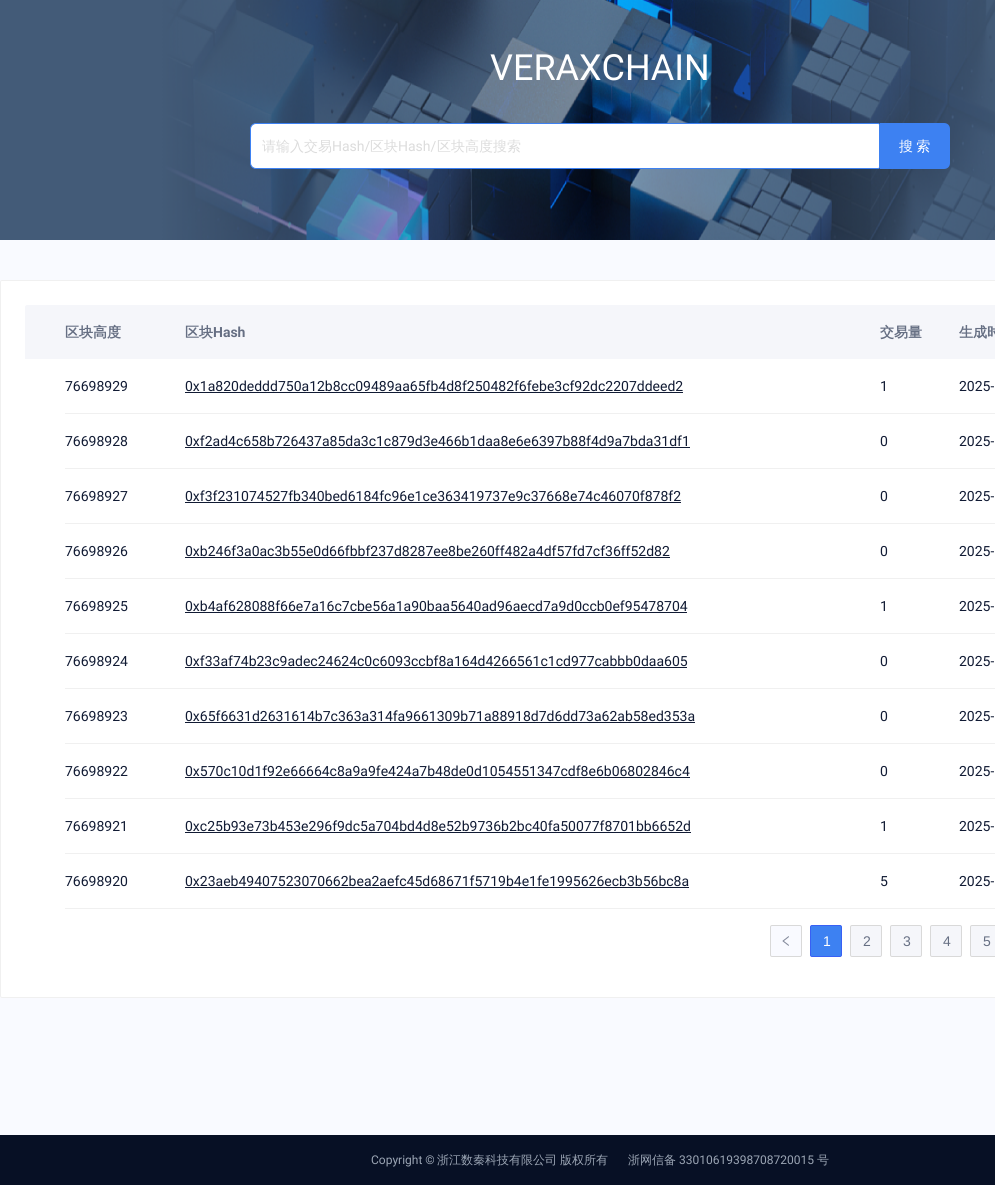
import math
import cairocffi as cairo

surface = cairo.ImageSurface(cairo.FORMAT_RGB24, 995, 1185)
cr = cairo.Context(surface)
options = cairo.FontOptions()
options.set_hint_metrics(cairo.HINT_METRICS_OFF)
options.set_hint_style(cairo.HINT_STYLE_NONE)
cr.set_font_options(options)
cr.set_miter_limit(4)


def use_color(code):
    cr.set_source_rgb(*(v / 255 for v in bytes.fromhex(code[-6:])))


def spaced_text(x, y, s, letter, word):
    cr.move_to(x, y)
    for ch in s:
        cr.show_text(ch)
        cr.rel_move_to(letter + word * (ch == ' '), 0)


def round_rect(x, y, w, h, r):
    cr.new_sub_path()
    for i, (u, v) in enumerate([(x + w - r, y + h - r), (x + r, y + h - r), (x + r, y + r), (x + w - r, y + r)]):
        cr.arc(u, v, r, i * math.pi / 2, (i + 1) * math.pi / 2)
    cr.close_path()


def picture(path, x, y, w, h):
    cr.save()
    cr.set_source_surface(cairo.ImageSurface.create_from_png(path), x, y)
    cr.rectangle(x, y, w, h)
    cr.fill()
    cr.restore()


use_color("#f9faff")
cr.paint()
picture("img1.png", 0, 0, 995, 240)
cr.select_font_face("Roboto")
cr.set_font_size(36)
use_color("#ffffff")
cr.move_to(490, 80)
cr.show_text("VERAXCHAIN")
cr.new_path()
cr.move_to(256, 123.5)
cr.line_to(878, 123.5)
cr.curve_to(879, 123.5, 879.5, 124, 879.5, 125)
cr.line_to(879.5, 167)
cr.curve_to(879.5, 168, 879, 168.5, 878, 168.5)
cr.line_to(256, 168.5)
cr.curve_to(253, 168.5, 250.5, 166, 250.5, 163)
cr.line_to(250.5, 129)
cr.curve_to(250.5, 126, 253, 123.5, 256, 123.5)
cr.close_path()
cr.fill_preserve()
use_color("#3d81f2")
cr.set_line_width(1)
cr.stroke()
cr.select_font_face("WenQuanYi Zen Hei Medium")
cr.set_font_size(14)
use_color("#dcdcdc")
cr.move_to(262, 151)
cr.show_text("请输入交易")
cr.select_font_face("Roboto")
cr.move_to(332, 151)
cr.show_text("Hash/")
cr.select_font_face("WenQuanYi Zen Hei Medium")
cr.move_to(370, 151)
cr.show_text("区块")
cr.select_font_face("Roboto")
cr.move_to(398, 151)
cr.show_text("Hash/")
cr.select_font_face("WenQuanYi Zen Hei Medium")
cr.move_to(437, 151)
cr.show_text("区块高度搜索")
use_color("#3d81f2")
cr.new_path()
cr.move_to(880, 123)
cr.line_to(944, 123)
cr.curve_to(947.5, 123, 950, 125.5, 950, 129)
cr.line_to(950, 163)
cr.curve_to(950, 166.5, 947.5, 169, 944, 169)
cr.line_to(880, 169)
cr.close_path()
cr.fill()
use_color("#ffffff")
spaced_text(899, 151, "搜 索", 0, -1)
round_rect(0.5, 280.5, 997, 717, 1.5)
cr.fill_preserve()
use_color("#f0f0f0")
cr.stroke()
use_color("#f5f6fa")
cr.new_path()
cr.move_to(27, 305)
cr.line_to(169, 305)
cr.line_to(169, 359)
cr.line_to(25, 359)
cr.line_to(25, 307)
cr.curve_to(25, 306, 26, 305, 27, 305)
cr.close_path()
cr.fill()
cr.select_font_face("WenQuanYi Zen Hei", cairo.FONT_SLANT_NORMAL, cairo.FONT_WEIGHT_BOLD)
use_color("#666f83")
cr.move_to(65, 337)
cr.show_text("区块高度")
use_color("#f5f6fa")
cr.rectangle(169, 305, 826, 54)
cr.fill()
use_color("#666f83")
cr.move_to(185, 337)
cr.show_text("区块")
cr.select_font_face("Roboto", cairo.FONT_SLANT_NORMAL, cairo.FONT_WEIGHT_BOLD)
cr.move_to(213, 337)
cr.show_text("Hash")
cr.select_font_face("WenQuanYi Zen Hei", cairo.FONT_SLANT_NORMAL, cairo.FONT_WEIGHT_BOLD)
cr.move_to(880, 337)
cr.show_text("交易量")
cr.move_to(959, 337)
cr.show_text("生成时")
cr.select_font_face("Roboto")
use_color("#111b34")
cr.move_to(65, 391)
cr.show_text("76698929")
use_color("#f0f0f0")
cr.rectangle(65, 413, 930, 1)
cr.fill()
use_color("#111b34")
cr.move_to(185, 391)
cr.show_text("0x1a820deddd750a12b8cc09489aa65fb4d8f250482f6febe3cf92dc2207ddeed2")
cr.rectangle(185, 392, 498, 1)
cr.fill()
cr.move_to(880, 391)
cr.show_text("1")
cr.move_to(959, 391)
cr.show_text("2025-")
cr.move_to(65, 446)
cr.show_text("76698928")
use_color("#f0f0f0")
cr.rectangle(65, 468, 930, 1)
cr.fill()
use_color("#111b34")
cr.move_to(185, 446)
cr.show_text("0xf2ad4c658b726437a85da3c1c879d3e466b1daa8e6e6397b88f4d9a7bda31df1")
cr.rectangle(185, 447, 505, 1)
cr.fill()
cr.move_to(880, 446)
cr.show_text("0")
cr.move_to(959, 446)
cr.show_text("2025-")
cr.move_to(65, 501)
cr.show_text("76698927")
use_color("#f0f0f0")
cr.rectangle(65, 523, 930, 1)
cr.fill()
use_color("#111b34")
cr.move_to(185, 501)
cr.show_text("0xf3f231074527fb340bed6184fc96e1ce363419737e9c37668e74c46070f878f2")
cr.rectangle(185, 502, 496, 1)
cr.fill()
cr.move_to(880, 501)
cr.show_text("0")
cr.move_to(959, 501)
cr.show_text("2025-")
cr.move_to(65, 556)
cr.show_text("76698926")
use_color("#f0f0f0")
cr.rectangle(65, 578, 930, 1)
cr.fill()
use_color("#111b34")
cr.move_to(185, 556)
cr.show_text("0xb246f3a0ac3b55e0d66fbbf237d8287ee8be260ff482a4df57fd7cf36ff52d82")
cr.rectangle(185, 557, 485, 1)
cr.fill()
cr.move_to(880, 556)
cr.show_text("0")
cr.move_to(959, 556)
cr.show_text("2025-")
cr.move_to(65, 611)
cr.show_text("76698925")
use_color("#f0f0f0")
cr.rectangle(65, 633, 930, 1)
cr.fill()
use_color("#111b34")
cr.move_to(185, 611)
cr.show_text("0xb4af628088f66e7a16c7cbe56a1a90baa5640ad96aecd7a9d0ccb0ef95478704")
cr.rectangle(185, 612, 502, 1)
cr.fill()
cr.move_to(880, 611)
cr.show_text("1")
cr.move_to(959, 611)
cr.show_text("2025-")
cr.move_to(65, 666)
cr.show_text("76698924")
use_color("#f0f0f0")
cr.rectangle(65, 688, 930, 1)
cr.fill()
use_color("#111b34")
cr.move_to(185, 666)
cr.show_text("0xf33af74b23c9adec24624c0c6093ccbf8a164d4266561c1cd977cabbb0daa605")
cr.rectangle(185, 667, 502, 1)
cr.fill()
cr.move_to(880, 666)
cr.show_text("0")
cr.move_to(959, 666)
cr.show_text("2025-")
cr.move_to(65, 721)
cr.show_text("76698923")
use_color("#f0f0f0")
cr.rectangle(65, 743, 930, 1)
cr.fill()
use_color("#111b34")
cr.move_to(185, 721)
cr.show_text("0x65f6631d2631614b7c363a314fa9661309b71a88918d7d6dd73a62ab58ed353a")
cr.rectangle(185, 722, 510, 1)
cr.fill()
cr.move_to(880, 721)
cr.show_text("0")
cr.move_to(959, 721)
cr.show_text("2025-")
cr.move_to(65, 776)
cr.show_text("76698922")
use_color("#f0f0f0")
cr.rectangle(65, 798, 930, 1)
cr.fill()
use_color("#111b34")
cr.move_to(185, 776)
cr.show_text("0x570c10d1f92e66664c8a9a9fe424a7b48de0d1054551347cdf8e6b06802846c4")
cr.rectangle(185, 777, 505, 1)
cr.fill()
cr.move_to(880, 776)
cr.show_text("0")
cr.move_to(959, 776)
cr.show_text("2025-")
cr.move_to(65, 831)
cr.show_text("76698921")
use_color("#f0f0f0")
cr.rectangle(65, 853, 930, 1)
cr.fill()
use_color("#111b34")
cr.move_to(185, 831)
cr.show_text("0xc25b93e73b453e296f9dc5a704bd4d8e52b9736b2bc40fa50077f8701bb6652d")
cr.rectangle(185, 832, 506, 1)
cr.fill()
cr.move_to(880, 831)
cr.show_text("1")
cr.move_to(959, 831)
cr.show_text("2025-")
cr.move_to(65, 886)
cr.show_text("76698920")
use_color("#f0f0f0")
cr.rectangle(65, 908, 930, 1)
cr.fill()
use_color("#111b34")
cr.move_to(185, 886)
cr.show_text("0x23aeb49407523070662bea2aefc45d68671f5719b4e1fe1995626ecb3b56bc8a")
cr.rectangle(185, 887, 504, 1)
cr.fill()
cr.move_to(880, 886)
cr.show_text("5")
cr.move_to(959, 886)
cr.show_text("2025-")
use_color("#f9faff")
round_rect(770.5, 925.5, 31, 31, 1.5)
cr.fill_preserve()
use_color("#d9d9d9")
cr.stroke()
picture("img2.png", 782, 936, 7, 10)
use_color("#3d81f2")
round_rect(810.5, 925.5, 31, 31, 1.5)
cr.fill_preserve()
use_color("#3860f4")
cr.stroke()
cr.select_font_face("Liberation Sans")
use_color("#ffffff")
cr.move_to(823, 946)
cr.show_text("1")
use_color("#f5f6fa")
round_rect(850.5, 925.5, 31, 31, 1.5)
cr.fill_preserve()
use_color("#d9d9d9")
cr.stroke()
use_color("#666f83")
cr.move_to(863, 946)
cr.show_text("2")
use_color("#f5f6fa")
round_rect(890.5, 925.5, 31, 31, 1.5)
cr.fill_preserve()
use_color("#d9d9d9")
cr.stroke()
use_color("#666f83")
cr.move_to(903, 946)
cr.show_text("3")
use_color("#f5f6fa")
round_rect(930.5, 925.5, 31, 31, 1.5)
cr.fill_preserve()
use_color("#d9d9d9")
cr.stroke()
use_color("#666f83")
cr.move_to(943, 946)
cr.show_text("4")
use_color("#f5f6fa")
round_rect(970.5, 925.5, 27, 31, 1.5)
cr.fill_preserve()
use_color("#d9d9d9")
cr.stroke()
use_color("#666f83")
cr.move_to(983, 946)
cr.show_text("5")
use_color("#071025")
cr.rectangle(0, 1135, 995, 50)
cr.fill()
cr.select_font_face("Roboto")
cr.set_font_size(12)
use_color("#9ba5b4")
cr.move_to(371, 1164)
cr.show_text("Copyright ©")
cr.select_font_face("WenQuanYi Zen Hei Medium")
cr.move_to(437, 1164)
cr.show_text("浙江数秦科技有限公司")
cr.move_to(560, 1164)
cr.show_text("版权所有")
cr.move_to(628, 1164)
cr.show_text("浙网信备")
cr.select_font_face("Roboto")
cr.move_to(679, 1164)
cr.show_text("33010619398708720015")
cr.select_font_face("WenQuanYi Zen Hei Medium")
cr.move_to(817, 1164)
cr.show_text("号")
surface.write_to_png("result.png")
